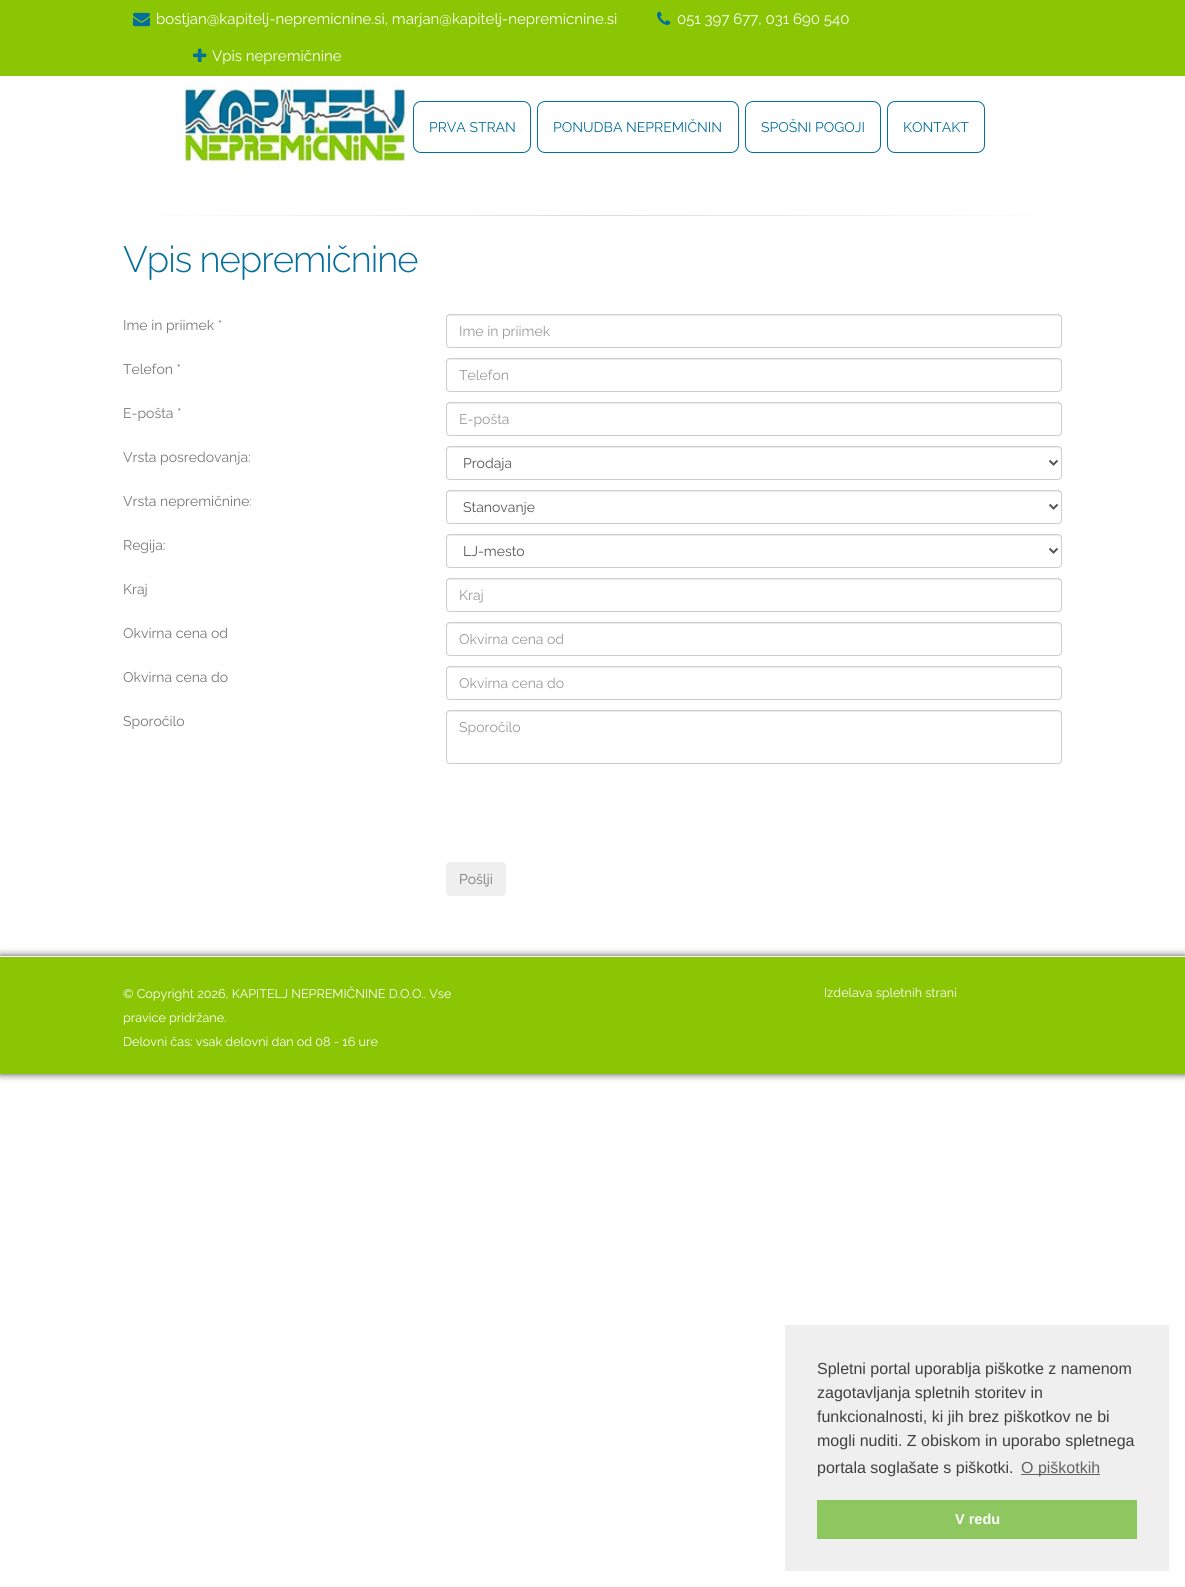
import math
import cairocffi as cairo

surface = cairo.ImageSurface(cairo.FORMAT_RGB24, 1185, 1587)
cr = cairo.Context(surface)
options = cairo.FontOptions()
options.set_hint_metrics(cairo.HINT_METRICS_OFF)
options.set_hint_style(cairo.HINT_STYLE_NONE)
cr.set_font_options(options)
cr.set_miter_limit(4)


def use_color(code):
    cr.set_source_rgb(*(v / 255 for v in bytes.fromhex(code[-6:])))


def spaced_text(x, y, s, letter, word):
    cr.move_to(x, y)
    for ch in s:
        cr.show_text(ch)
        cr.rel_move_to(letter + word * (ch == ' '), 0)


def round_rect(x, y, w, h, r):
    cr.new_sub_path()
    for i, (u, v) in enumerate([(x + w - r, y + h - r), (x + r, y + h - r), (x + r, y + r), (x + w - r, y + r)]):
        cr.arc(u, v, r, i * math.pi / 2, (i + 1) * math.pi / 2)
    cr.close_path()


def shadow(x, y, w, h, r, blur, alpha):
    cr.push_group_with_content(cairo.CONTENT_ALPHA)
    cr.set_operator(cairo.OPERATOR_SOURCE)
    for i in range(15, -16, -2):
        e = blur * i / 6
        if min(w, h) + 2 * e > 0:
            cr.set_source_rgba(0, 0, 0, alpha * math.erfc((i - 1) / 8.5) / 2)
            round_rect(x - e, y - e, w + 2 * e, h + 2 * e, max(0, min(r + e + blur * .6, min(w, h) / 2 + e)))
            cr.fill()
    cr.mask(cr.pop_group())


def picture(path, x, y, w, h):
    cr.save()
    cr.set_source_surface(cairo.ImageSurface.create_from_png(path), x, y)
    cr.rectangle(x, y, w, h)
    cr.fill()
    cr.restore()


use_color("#ffffff")
cr.paint()
use_color("#8bc604")
cr.rectangle(0, 0, 1185, 76)
cr.fill()
picture("img1.png", 133, 12, 17, 15)
cr.select_font_face("Raleway")
cr.set_font_size(15)
use_color("#ffffff")
cr.move_to(156, 24)
cr.show_text("bostjan@kapitelj-nepremicnine.si, marjan@kapitelj-nepremicnine.si")
picture("img2.png", 657, 11, 14, 14)
cr.move_to(677, 24)
cr.show_text("051 397 677, 031 690 540")
picture("img3.png", 193, 48, 14, 14)
cr.move_to(212, 61)
cr.show_text("Vpis nepremičnine")
picture("img4.png", 180, 84, 225, 80)
round_rect(413.5, 101.5, 117, 51, 7.5)
use_color("#056f9c")
cr.set_line_width(1)
cr.stroke()
cr.set_font_size(14)
cr.move_to(429, 132)
cr.show_text("PRVA STRAN")
round_rect(537.5, 101.5, 201, 51, 7.5)
cr.stroke()
cr.move_to(553, 132)
cr.show_text("PONUDBA NEPREMIČNIN")
round_rect(745.5, 101.5, 135, 51, 7.5)
cr.stroke()
cr.move_to(761, 132)
cr.show_text("SPOŠNI POGOJI")
round_rect(887.5, 101.5, 97, 51, 7.5)
cr.stroke()
cr.move_to(903, 132)
cr.show_text("KONTAKT")
gradient = cairo.LinearGradient(123, 216, 1063, 215)
gradient.add_color_stop_rgba(0, 1, 1, 1, 1)
gradient.add_color_stop_rgba(0.5, 0.859, 0.859, 0.859, 1)
gradient.add_color_stop_rgba(1, 1, 1, 1, 1)
cr.set_source(gradient)
cr.rectangle(156, 215, 874, 1)
cr.fill()
cr.select_font_face("Raleway Light")
cr.set_font_size(36.5)
use_color("#056f9c")
spaced_text(123, 272, "Vpis nepremičnine", -1, 0)
cr.select_font_face("Raleway")
cr.set_font_size(14)
use_color("#777777")
cr.move_to(123, 330)
cr.show_text("Ime in priimek *")
use_color("#ececec")
cr.new_path()
cr.move_to(450, 316)
cr.line_to(1058, 316)
cr.curve_to(1060, 316, 1061, 317, 1061, 319)
cr.line_to(1061, 318)
cr.curve_to(1061, 316, 1060, 315, 1058, 315)
cr.line_to(450, 315)
cr.curve_to(448, 315, 447, 316, 447, 318)
cr.line_to(447, 319)
cr.curve_to(447, 317, 448, 316, 450, 316)
cr.close_path()
cr.fill()
round_rect(446.5, 314.5, 615, 33, 3.5)
use_color("#cccccc")
cr.stroke()
use_color("#999999")
cr.move_to(459, 336)
cr.show_text("Ime in priimek")
use_color("#777777")
cr.move_to(123, 374)
cr.show_text("Telefon *")
use_color("#ececec")
cr.new_path()
cr.move_to(450, 360)
cr.line_to(1058, 360)
cr.curve_to(1060, 360, 1061, 361, 1061, 363)
cr.line_to(1061, 362)
cr.curve_to(1061, 360, 1060, 359, 1058, 359)
cr.line_to(450, 359)
cr.curve_to(448, 359, 447, 360, 447, 362)
cr.line_to(447, 363)
cr.curve_to(447, 361, 448, 360, 450, 360)
cr.close_path()
cr.fill()
round_rect(446.5, 358.5, 615, 33, 3.5)
use_color("#cccccc")
cr.stroke()
use_color("#999999")
cr.move_to(459, 380)
cr.show_text("Telefon")
use_color("#777777")
cr.move_to(123, 418)
cr.show_text("E-pošta *")
use_color("#ececec")
cr.new_path()
cr.move_to(450, 404)
cr.line_to(1058, 404)
cr.curve_to(1060, 404, 1061, 405, 1061, 407)
cr.line_to(1061, 406)
cr.curve_to(1061, 404, 1060, 403, 1058, 403)
cr.line_to(450, 403)
cr.curve_to(448, 403, 447, 404, 447, 406)
cr.line_to(447, 407)
cr.curve_to(447, 405, 448, 404, 450, 404)
cr.close_path()
cr.fill()
round_rect(446.5, 402.5, 615, 33, 3.5)
use_color("#cccccc")
cr.stroke()
use_color("#999999")
cr.move_to(459, 424)
cr.show_text("E-pošta")
use_color("#777777")
cr.move_to(123, 462)
cr.show_text("Vrsta posredovanja:")
use_color("#ececec")
cr.new_path()
cr.move_to(450, 448)
cr.line_to(1058, 448)
cr.curve_to(1060, 448, 1061, 449, 1061, 451)
cr.line_to(1061, 450)
cr.curve_to(1061, 448, 1060, 447, 1058, 447)
cr.line_to(450, 447)
cr.curve_to(448, 447, 447, 448, 447, 450)
cr.line_to(447, 451)
cr.curve_to(447, 449, 448, 448, 450, 448)
cr.close_path()
cr.fill()
round_rect(446.5, 446.5, 615, 33, 3.5)
use_color("#cccccc")
cr.stroke()
cr.new_path()
cr.move_to(1049.5, 460.5)
cr.line_to(1053.5, 464.5)
cr.line_to(1057.5, 460.5)
use_color("#555555")
cr.set_line_width(2)
cr.stroke()
cr.move_to(463, 468)
cr.show_text("Prodaja")
use_color("#777777")
cr.move_to(123, 506)
cr.show_text("Vrsta nepremičnine:")
use_color("#ececec")
cr.new_path()
cr.move_to(450, 492)
cr.line_to(1058, 492)
cr.curve_to(1060, 492, 1061, 493, 1061, 495)
cr.line_to(1061, 494)
cr.curve_to(1061, 492, 1060, 491, 1058, 491)
cr.line_to(450, 491)
cr.curve_to(448, 491, 447, 492, 447, 494)
cr.line_to(447, 495)
cr.curve_to(447, 493, 448, 492, 450, 492)
cr.close_path()
cr.fill()
round_rect(446.5, 490.5, 615, 33, 3.5)
use_color("#cccccc")
cr.set_line_width(1)
cr.stroke()
cr.new_path()
cr.move_to(1049.5, 504.5)
cr.line_to(1053.5, 508.5)
cr.line_to(1057.5, 504.5)
use_color("#555555")
cr.set_line_width(2)
cr.stroke()
cr.move_to(463, 512)
cr.show_text("Stanovanje")
use_color("#777777")
cr.move_to(123, 550)
cr.show_text("Regija:")
use_color("#ececec")
cr.new_path()
cr.move_to(450, 536)
cr.line_to(1058, 536)
cr.curve_to(1060, 536, 1061, 537, 1061, 539)
cr.line_to(1061, 538)
cr.curve_to(1061, 536, 1060, 535, 1058, 535)
cr.line_to(450, 535)
cr.curve_to(448, 535, 447, 536, 447, 538)
cr.line_to(447, 539)
cr.curve_to(447, 537, 448, 536, 450, 536)
cr.close_path()
cr.fill()
round_rect(446.5, 534.5, 615, 33, 3.5)
use_color("#cccccc")
cr.set_line_width(1)
cr.stroke()
cr.new_path()
cr.move_to(1049.5, 548.5)
cr.line_to(1053.5, 552.5)
cr.line_to(1057.5, 548.5)
use_color("#555555")
cr.set_line_width(2)
cr.stroke()
cr.move_to(463, 556)
cr.show_text("LJ-mesto")
use_color("#777777")
cr.move_to(123, 594)
cr.show_text("Kraj")
use_color("#ececec")
cr.new_path()
cr.move_to(450, 580)
cr.line_to(1058, 580)
cr.curve_to(1060, 580, 1061, 581, 1061, 583)
cr.line_to(1061, 582)
cr.curve_to(1061, 580, 1060, 579, 1058, 579)
cr.line_to(450, 579)
cr.curve_to(448, 579, 447, 580, 447, 582)
cr.line_to(447, 583)
cr.curve_to(447, 581, 448, 580, 450, 580)
cr.close_path()
cr.fill()
round_rect(446.5, 578.5, 615, 33, 3.5)
use_color("#cccccc")
cr.set_line_width(1)
cr.stroke()
use_color("#999999")
cr.move_to(459, 600)
cr.show_text("Kraj")
use_color("#777777")
cr.move_to(123, 638)
cr.show_text("Okvirna cena od")
use_color("#ececec")
cr.new_path()
cr.move_to(450, 624)
cr.line_to(1058, 624)
cr.curve_to(1060, 624, 1061, 625, 1061, 627)
cr.line_to(1061, 626)
cr.curve_to(1061, 624, 1060, 623, 1058, 623)
cr.line_to(450, 623)
cr.curve_to(448, 623, 447, 624, 447, 626)
cr.line_to(447, 627)
cr.curve_to(447, 625, 448, 624, 450, 624)
cr.close_path()
cr.fill()
round_rect(446.5, 622.5, 615, 33, 3.5)
use_color("#cccccc")
cr.stroke()
use_color("#999999")
cr.move_to(459, 644)
cr.show_text("Okvirna cena od")
use_color("#777777")
cr.move_to(123, 682)
cr.show_text("Okvirna cena do")
use_color("#ececec")
cr.new_path()
cr.move_to(450, 668)
cr.line_to(1058, 668)
cr.curve_to(1060, 668, 1061, 669, 1061, 671)
cr.line_to(1061, 670)
cr.curve_to(1061, 668, 1060, 667, 1058, 667)
cr.line_to(450, 667)
cr.curve_to(448, 667, 447, 668, 447, 670)
cr.line_to(447, 671)
cr.curve_to(447, 669, 448, 668, 450, 668)
cr.close_path()
cr.fill()
round_rect(446.5, 666.5, 615, 33, 3.5)
use_color("#cccccc")
cr.stroke()
use_color("#999999")
cr.move_to(459, 688)
cr.show_text("Okvirna cena do")
use_color("#777777")
cr.move_to(123, 726)
cr.show_text("Sporočilo")
use_color("#ececec")
cr.new_path()
cr.move_to(450, 712)
cr.line_to(1058, 712)
cr.curve_to(1060, 712, 1061, 713, 1061, 715)
cr.line_to(1061, 714)
cr.curve_to(1061, 712, 1060, 711, 1058, 711)
cr.line_to(450, 711)
cr.curve_to(448, 711, 447, 712, 447, 714)
cr.line_to(447, 715)
cr.curve_to(447, 713, 448, 712, 450, 712)
cr.close_path()
cr.fill()
round_rect(446.5, 710.5, 615, 53, 3.5)
use_color("#cccccc")
cr.stroke()
use_color("#999999")
cr.move_to(459, 732)
cr.show_text("Sporočilo")
use_color("#efefef")
round_rect(446, 862, 60, 34, 4)
cr.fill()
use_color("#777777")
cr.move_to(459, 884)
cr.show_text("Pošlji")
use_color("#000000")
shadow(0, 956, 1185, 118, 0, 4, 0.7)
use_color("#8bc604")
cr.rectangle(0, 957, 1185, 117)
cr.fill()
use_color("#ffffff")
cr.rectangle(0, 956, 1185, 1)
cr.fill()
cr.set_font_size(12.6)
cr.move_to(123, 998)
cr.show_text("© Copyright 2026, KAPITELJ NEPREMIČNINE D.O.O.. Vse")
cr.move_to(123, 1022)
cr.show_text("pravice pridržane.")
cr.move_to(123, 1046)
cr.show_text("Delovni čas: vsak delovni dan od 08 - 16 ure")
cr.move_to(824, 997)
cr.show_text("Izdelava spletnih strani")
use_color("#efefef")
cr.rectangle(785, 1325, 384, 246)
cr.fill()
cr.select_font_face("Liberation Sans")
cr.set_font_size(16)
use_color("#404040")
cr.move_to(817, 1374)
cr.show_text("Spletni portal uporablja piškotke z namenom")
cr.move_to(817, 1398)
cr.show_text("zagotavljanja spletnih storitev in")
cr.move_to(817, 1422)
cr.show_text("funkcionalnosti, ki jih brez piškotkov ne bi")
cr.move_to(817, 1446)
cr.show_text("mogli nuditi. Z obiskom in uporabo spletnega")
cr.move_to(817, 1473)
cr.show_text("portala soglašate s piškotki.")
use_color("#636363")
cr.rectangle(1021, 1474, 79, 1)
cr.fill()
cr.move_to(1021, 1473)
cr.show_text("O piškotkih")
use_color("#8ec760")
cr.rectangle(817, 1500, 320, 39)
cr.fill()
cr.select_font_face("Liberation Sans", cairo.FONT_SLANT_NORMAL, cairo.FONT_WEIGHT_BOLD)
cr.set_font_size(14.5)
use_color("#ffffff")
cr.move_to(955, 1524)
cr.show_text("V redu")
surface.write_to_png("result.png")
